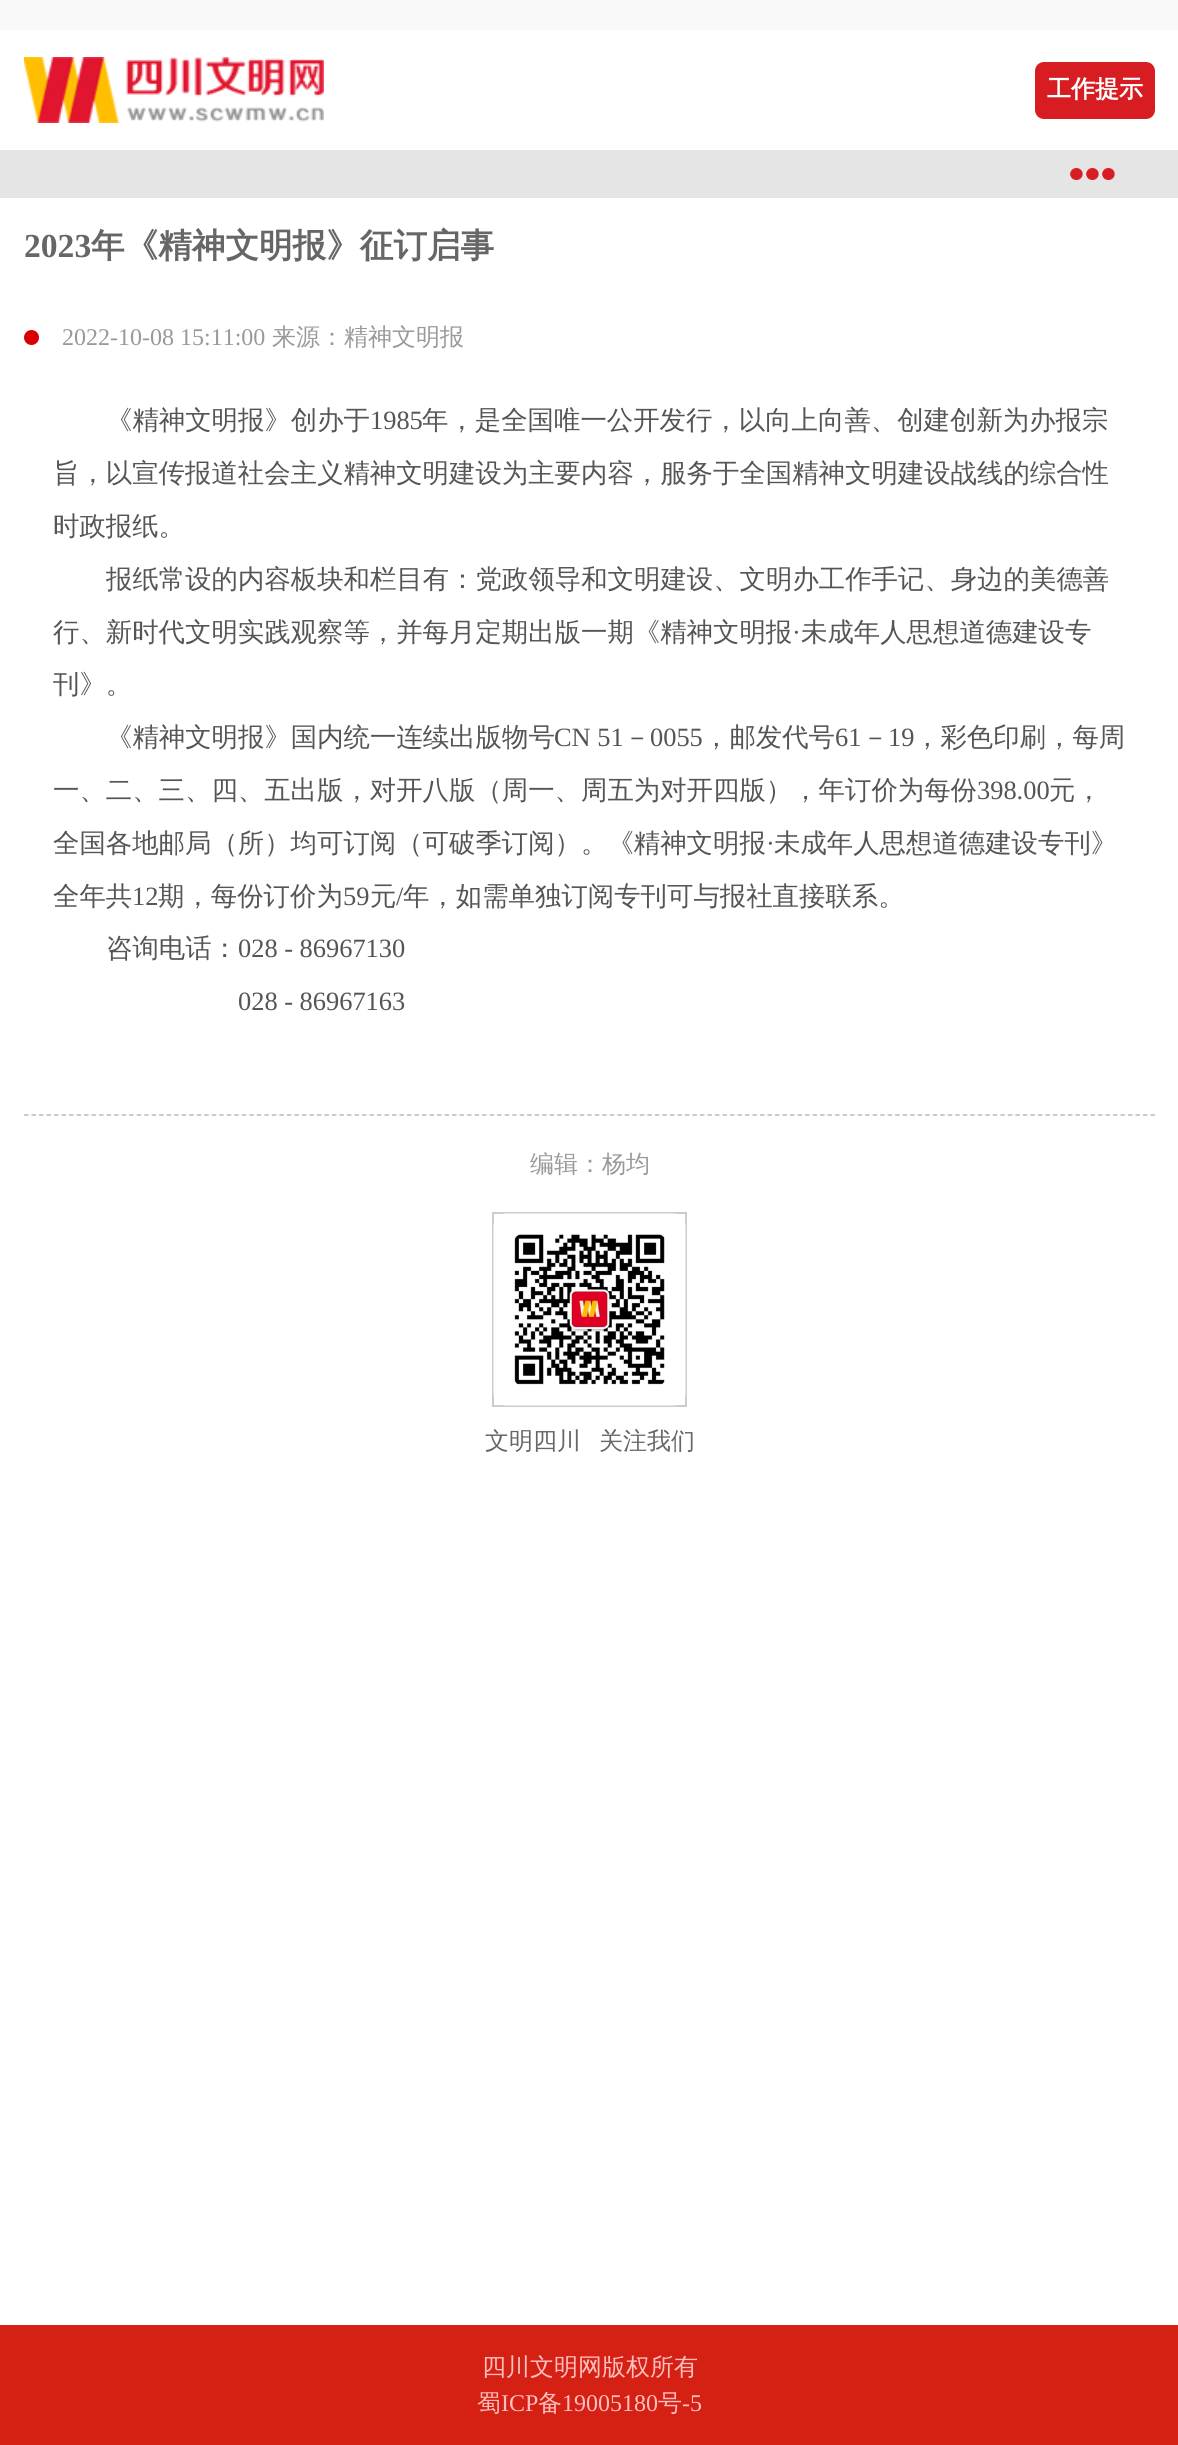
import math
import cairocffi as cairo

surface = cairo.ImageSurface(cairo.FORMAT_RGB24, 1178, 2445)
cr = cairo.Context(surface)
options = cairo.FontOptions()
options.set_hint_metrics(cairo.HINT_METRICS_OFF)
options.set_hint_style(cairo.HINT_STYLE_NONE)
cr.set_font_options(options)
cr.set_miter_limit(4)


def use_color(code):
    cr.set_source_rgb(*(v / 255 for v in bytes.fromhex(code[-6:])))


def round_rect(x, y, w, h, r):
    cr.new_sub_path()
    for i, (u, v) in enumerate([(x + w - r, y + h - r), (x + r, y + h - r), (x + r, y + r), (x + w - r, y + r)]):
        cr.arc(u, v, r, i * math.pi / 2, (i + 1) * math.pi / 2)
    cr.close_path()


def picture(path, x, y, w, h):
    cr.save()
    cr.set_source_surface(cairo.ImageSurface.create_from_png(path), x, y)
    cr.rectangle(x, y, w, h)
    cr.fill()
    cr.restore()


use_color("#f9f9f9")
cr.paint()
use_color("#ffffff")
cr.rectangle(0, 30, 1178, 2295)
cr.fill()
picture("img1.png", 24, 57, 300, 66)
use_color("#d71d21")
round_rect(1035, 62, 120, 57, 9)
cr.fill()
cr.select_font_face("WenQuanYi Zen Hei", cairo.FONT_SLANT_NORMAL, cairo.FONT_WEIGHT_BOLD)
cr.set_font_size(24)
use_color("#ffffff")
cr.move_to(1047, 97)
cr.show_text("工作提示")
use_color("#e5e5e5")
cr.rectangle(0, 150, 1178, 48)
cr.fill()
picture("img2.png", 1070, 168, 45, 12)
cr.select_font_face("Liberation Serif", cairo.FONT_SLANT_NORMAL, cairo.FONT_WEIGHT_BOLD)
cr.set_font_size(33.6)
use_color("#666666")
cr.move_to(24, 257)
cr.show_text("2023")
cr.select_font_face("WenQuanYi Zen Hei", cairo.FONT_SLANT_NORMAL, cairo.FONT_WEIGHT_BOLD)
cr.move_to(91, 257)
cr.show_text("年《精神文明报》征订启事")
use_color("#db0000")
cr.new_path()
cr.arc(31.5, 337.5, 7.5, 0, 2 * math.pi)
cr.fill()
cr.select_font_face("Liberation Serif")
cr.set_font_size(24)
use_color("#999999")
cr.move_to(62, 345)
cr.show_text("2022-10-08 15:11:00")
cr.select_font_face("WenQuanYi Zen Hei Medium")
cr.move_to(272, 345)
cr.show_text("来源：精神文明报")
cr.set_font_size(26.4)
use_color("#555555")
cr.move_to(106, 429)
cr.show_text("《精神文明报》创办于")
cr.select_font_face("Liberation Serif")
cr.move_to(370, 429)
cr.show_text("1985")
cr.select_font_face("WenQuanYi Zen Hei Medium")
cr.move_to(422, 429)
cr.show_text("年，是全国唯一公开发行，以向上向善、创建创新为办报宗")
cr.move_to(53, 482)
cr.show_text("旨，以宣传报道社会主义精神文明建设为主要内容，服务于全国精神文明建设战线的综合性")
cr.move_to(53, 535)
cr.show_text("时政报纸。")
cr.move_to(106, 588)
cr.show_text("报纸常设的内容板块和栏目有：党政领导和文明建设、文明办工作手记、身边的美德善")
cr.move_to(53, 641)
cr.show_text("行、新时代文明实践观察等，并每月定期出版一期《精神文明报")
cr.select_font_face("Liberation Serif")
cr.move_to(792, 641)
cr.show_text("·")
cr.select_font_face("WenQuanYi Zen Hei Medium")
cr.move_to(801, 641)
cr.show_text("未成年人思想道德建设专")
cr.move_to(53, 693)
cr.show_text("刊》。")
cr.move_to(106, 746)
cr.show_text("《精神文明报》国内统一连续出版物号")
cr.select_font_face("Liberation Serif")
cr.move_to(554, 746)
cr.show_text("CN 51")
cr.select_font_face("WenQuanYi Zen Hei Medium")
cr.move_to(624, 746)
cr.show_text("－")
cr.select_font_face("Liberation Serif")
cr.move_to(650, 746)
cr.show_text("0055")
cr.select_font_face("WenQuanYi Zen Hei Medium")
cr.move_to(703, 746)
cr.show_text("，邮发代号")
cr.select_font_face("Liberation Serif")
cr.move_to(835, 746)
cr.show_text("61")
cr.select_font_face("WenQuanYi Zen Hei Medium")
cr.move_to(862, 746)
cr.show_text("－")
cr.select_font_face("Liberation Serif")
cr.move_to(888, 746)
cr.show_text("19")
cr.select_font_face("WenQuanYi Zen Hei Medium")
cr.move_to(914, 746)
cr.show_text("，彩色印刷，每周")
cr.move_to(53, 799)
cr.show_text("一、二、三、四、五出版，对开八版（周一、周五为对开四版），年订价为每份")
cr.select_font_face("Liberation Serif")
cr.move_to(977, 799)
cr.show_text("398.00")
cr.select_font_face("WenQuanYi Zen Hei Medium")
cr.move_to(1049, 799)
cr.show_text("元，")
cr.move_to(53, 852)
cr.show_text("全国各地邮局（所）均可订阅（可破季订阅）。《精神文明报")
cr.select_font_face("Liberation Serif")
cr.move_to(766, 852)
cr.show_text("·")
cr.select_font_face("WenQuanYi Zen Hei Medium")
cr.move_to(774, 852)
cr.show_text("未成年人思想道德建设专刊》")
cr.move_to(53, 905)
cr.show_text("全年共")
cr.select_font_face("Liberation Serif")
cr.move_to(132, 905)
cr.show_text("12")
cr.select_font_face("WenQuanYi Zen Hei Medium")
cr.move_to(158, 905)
cr.show_text("期，每份订价为")
cr.select_font_face("Liberation Serif")
cr.move_to(343, 905)
cr.show_text("59")
cr.select_font_face("WenQuanYi Zen Hei Medium")
cr.move_to(370, 905)
cr.show_text("元")
cr.select_font_face("Liberation Serif")
cr.move_to(396, 905)
cr.show_text("/")
cr.select_font_face("WenQuanYi Zen Hei Medium")
cr.move_to(403, 905)
cr.show_text("年，如需单独订阅专刊可与报社直接联系。")
cr.move_to(106, 957)
cr.show_text("咨询电话：")
cr.select_font_face("Liberation Serif")
cr.move_to(238, 957)
cr.show_text("028 - 86967130")
cr.move_to(238, 1010)
cr.show_text("028 - 86967163")
cr.new_path()
cr.move_to(24, 1115)
cr.line_to(1155, 1115)
use_color("#bbbbbb")
cr.set_line_width(1.5)
cr.set_dash([4.5, 3.01])
cr.stroke()
cr.select_font_face("WenQuanYi Zen Hei Medium")
cr.set_font_size(24)
use_color("#999999")
cr.move_to(530, 1172)
cr.show_text("编辑：杨均")
cr.rectangle(493, 1213, 193, 193)
use_color("#cccccc")
cr.set_line_width(2)
cr.set_dash([])
cr.stroke()
picture("img3.png", 493, 1213, 193, 193)
use_color("#666666")
cr.move_to(485, 1449)
cr.show_text("文明四川")
cr.move_to(599, 1449)
cr.show_text("关注我们")
use_color("#d52014")
cr.rectangle(0, 2325, 1178, 120)
cr.fill()
use_color("#ffbfbf")
cr.move_to(482, 2375)
cr.show_text("四川文明网版权所有")
cr.move_to(477, 2411)
cr.show_text("蜀")
cr.select_font_face("Liberation Serif")
cr.move_to(501, 2411)
cr.show_text("ICP")
cr.select_font_face("WenQuanYi Zen Hei Medium")
cr.move_to(538, 2411)
cr.show_text("备")
cr.select_font_face("Liberation Serif")
cr.move_to(562, 2411)
cr.show_text("19005180")
cr.select_font_face("WenQuanYi Zen Hei Medium")
cr.move_to(658, 2411)
cr.show_text("号")
cr.select_font_face("Liberation Serif")
cr.move_to(682, 2411)
cr.show_text("-5")
surface.write_to_png("result.png")
